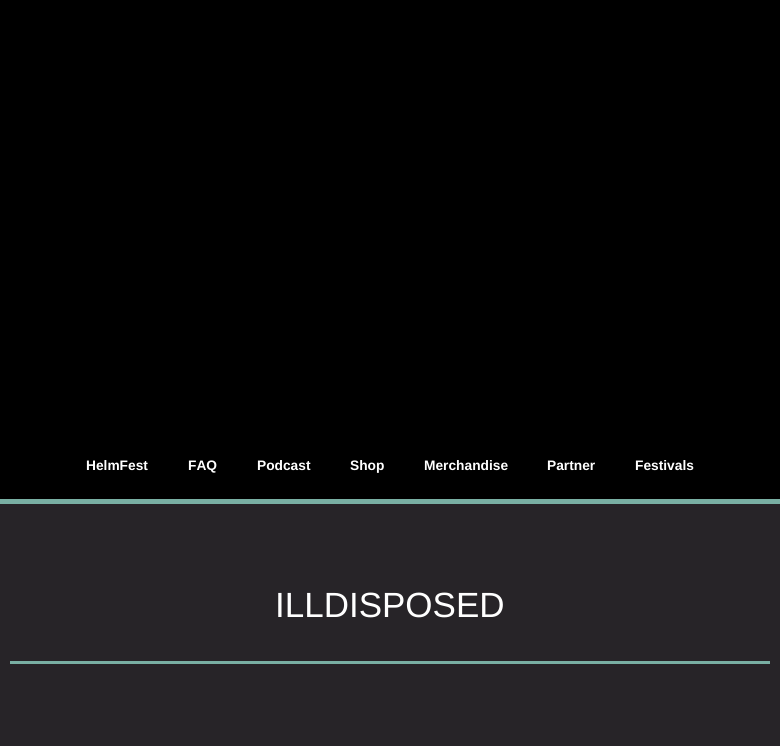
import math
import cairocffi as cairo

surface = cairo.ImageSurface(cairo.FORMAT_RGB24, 780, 746)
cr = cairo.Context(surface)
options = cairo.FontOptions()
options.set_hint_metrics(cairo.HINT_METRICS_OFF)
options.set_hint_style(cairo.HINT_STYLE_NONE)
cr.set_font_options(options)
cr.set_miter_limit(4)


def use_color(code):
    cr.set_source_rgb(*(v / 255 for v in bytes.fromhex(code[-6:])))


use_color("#272428")
cr.paint()
use_color("#000000")
cr.rectangle(0, 0, 780, 499)
cr.fill()
use_color("#79afa3")
cr.rectangle(0, 499, 780, 5)
cr.fill()
cr.select_font_face("Liberation Sans", cairo.FONT_SLANT_NORMAL, cairo.FONT_WEIGHT_BOLD)
cr.set_font_size(13.75)
use_color("#ffffff")
cr.move_to(86, 470)
cr.show_text("HelmFest")
cr.move_to(188, 470)
cr.show_text("FAQ")
cr.move_to(257, 470)
cr.show_text("Podcast")
cr.move_to(350, 470)
cr.show_text("Shop")
cr.move_to(424, 470)
cr.show_text("Merchandise")
cr.move_to(547, 470)
cr.show_text("Partner")
cr.move_to(635, 470)
cr.show_text("Festivals")
cr.select_font_face("Liberation Sans")
cr.set_font_size(35)
cr.move_to(275, 617)
cr.show_text("ILLDISPOSED")
use_color("#79afa3")
cr.rectangle(10, 661, 760, 3)
cr.fill()
surface.write_to_png("result.png")
